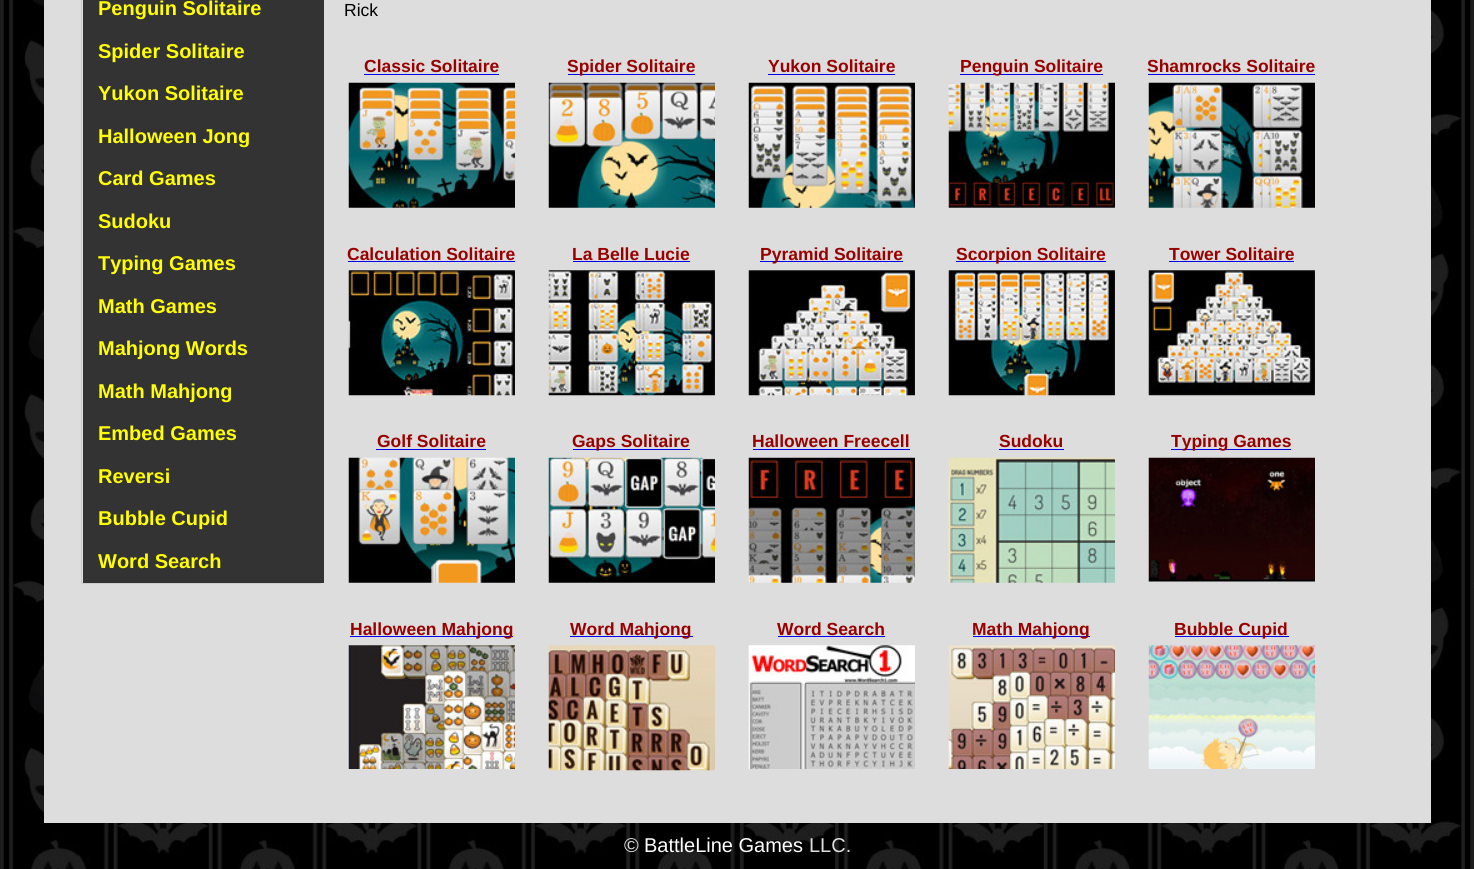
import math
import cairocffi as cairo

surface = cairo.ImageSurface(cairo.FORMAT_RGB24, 1474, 869)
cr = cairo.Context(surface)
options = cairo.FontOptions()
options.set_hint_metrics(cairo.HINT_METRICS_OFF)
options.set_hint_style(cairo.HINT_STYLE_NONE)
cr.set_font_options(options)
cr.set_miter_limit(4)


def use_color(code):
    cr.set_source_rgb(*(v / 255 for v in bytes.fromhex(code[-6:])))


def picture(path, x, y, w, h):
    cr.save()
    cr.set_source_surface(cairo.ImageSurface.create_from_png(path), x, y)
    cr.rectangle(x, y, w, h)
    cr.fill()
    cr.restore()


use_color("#ffffff")
cr.paint()
picture("img1.png", 0, 0, 1474, 869)
use_color("#dddddd")
cr.rectangle(44, 0, 1387, 823)
cr.fill()
cr.rectangle(81.5, -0.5, 239, 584)
use_color("#cccccc")
cr.set_line_width(1)
cr.stroke()
use_color("#333333")
cr.rectangle(83, 0, 241, 583)
cr.fill()
cr.select_font_face("Liberation Sans", cairo.FONT_SLANT_NORMAL, cairo.FONT_WEIGHT_BOLD)
cr.set_font_size(20)
use_color("#ffff00")
cr.move_to(98, 15)
cr.show_text("Penguin Solitaire")
cr.move_to(98, 58)
cr.show_text("Spider Solitaire")
cr.move_to(98, 100)
cr.show_text("Yukon Solitaire")
cr.move_to(98, 143)
cr.show_text("Halloween Jong")
cr.move_to(98, 185)
cr.show_text("Card Games")
cr.move_to(98, 228)
cr.show_text("Sudoku")
cr.move_to(98, 270)
cr.show_text("Typing Games")
cr.move_to(98, 313)
cr.show_text("Math Games")
cr.move_to(98, 355)
cr.show_text("Mahjong Words")
cr.move_to(98, 398)
cr.show_text("Math Mahjong")
cr.move_to(98, 440)
cr.show_text("Embed Games")
cr.move_to(98, 483)
cr.show_text("Reversi")
cr.move_to(98, 525)
cr.show_text("Bubble Cupid")
cr.move_to(98, 568)
cr.show_text("Word Search")
cr.select_font_face("Liberation Sans")
cr.set_font_size(17.5)
use_color("#000000")
cr.move_to(344, 16)
cr.show_text("Rick")
cr.select_font_face("Liberation Sans", cairo.FONT_SLANT_NORMAL, cairo.FONT_WEIGHT_BOLD)
use_color("#990000")
cr.move_to(364, 72)
cr.show_text("Classic Solitaire")
use_color("#0000ee")
cr.rectangle(364, 74, 135, 1)
cr.fill()
picture("img2.png", 348, 82, 167, 126)
cr.rectangle(568, 74, 127, 1)
cr.fill()
use_color("#990000")
cr.move_to(567, 72)
cr.show_text("Spider Solitaire")
picture("img3.png", 548, 82, 167, 126)
cr.move_to(768, 72)
cr.show_text("Yukon Solitaire")
use_color("#0000ee")
cr.rectangle(768, 74, 127, 1)
cr.fill()
picture("img4.png", 748, 82, 167, 126)
cr.rectangle(960, 74, 143, 1)
cr.fill()
use_color("#990000")
cr.move_to(960, 72)
cr.show_text("Penguin Solitaire")
picture("img5.png", 948, 82, 167, 126)
cr.move_to(1147, 72)
cr.show_text("Shamrocks Solitaire")
use_color("#0000ee")
cr.rectangle(1148, 74, 167, 1)
cr.fill()
picture("img6.png", 1148, 82, 167, 126)
use_color("#990000")
cr.move_to(347, 260)
cr.show_text("Calculation Solitaire")
use_color("#0000ee")
cr.rectangle(348, 261, 167, 1)
cr.fill()
picture("img7.png", 348, 270, 167, 126)
use_color("#990000")
cr.move_to(572, 260)
cr.show_text("La Belle Lucie")
use_color("#0000ee")
cr.rectangle(573, 261, 117, 1)
cr.fill()
picture("img8.png", 548, 270, 167, 126)
cr.rectangle(760, 261, 143, 1)
cr.fill()
use_color("#990000")
cr.move_to(760, 260)
cr.show_text("Pyramid Solitaire")
picture("img9.png", 748, 270, 167, 126)
use_color("#0000ee")
cr.rectangle(956, 261, 150, 1)
cr.fill()
use_color("#990000")
cr.move_to(956, 260)
cr.show_text("Scorpion Solitaire")
picture("img10.png", 948, 270, 167, 126)
cr.move_to(1169, 260)
cr.show_text("Tower Solitaire")
use_color("#0000ee")
cr.rectangle(1169, 261, 125, 1)
cr.fill()
picture("img11.png", 1148, 270, 167, 126)
use_color("#990000")
cr.move_to(377, 447)
cr.show_text("Golf Solitaire")
use_color("#0000ee")
cr.rectangle(376, 449, 110, 1)
cr.fill()
picture("img12.png", 348, 457, 167, 126)
cr.rectangle(573, 449, 117, 1)
cr.fill()
use_color("#990000")
cr.move_to(572, 447)
cr.show_text("Gaps Solitaire")
picture("img13.png", 548, 457, 167, 126)
cr.move_to(752, 447)
cr.show_text("Halloween Freecell")
use_color("#0000ee")
cr.rectangle(753, 449, 157, 1)
cr.fill()
picture("img14.png", 748, 457, 167, 126)
use_color("#990000")
cr.move_to(999, 447)
cr.show_text("Sudoku")
use_color("#0000ee")
cr.rectangle(999, 449, 65, 1)
cr.fill()
picture("img15.png", 948, 457, 167, 126)
cr.rectangle(1171, 449, 120, 1)
cr.fill()
use_color("#990000")
cr.move_to(1171, 447)
cr.show_text("Typing Games")
picture("img16.png", 1148, 457, 167, 125)
use_color("#0000ee")
cr.rectangle(350, 636, 163, 1)
cr.fill()
use_color("#990000")
cr.move_to(350, 635)
cr.show_text("Halloween Mahjong")
picture("img17.png", 348, 645, 167, 124)
use_color("#0000ee")
cr.rectangle(570, 636, 123, 1)
cr.fill()
use_color("#990000")
cr.move_to(570, 635)
cr.show_text("Word Mahjong")
picture("img18.png", 548, 645, 167, 126)
cr.move_to(777, 635)
cr.show_text("Word Search")
use_color("#0000ee")
cr.rectangle(778, 636, 107, 1)
cr.fill()
picture("img19.png", 748, 645, 167, 124)
cr.rectangle(973, 636, 117, 1)
cr.fill()
use_color("#990000")
cr.move_to(972, 635)
cr.show_text("Math Mahjong")
picture("img20.png", 948, 645, 167, 124)
use_color("#0000ee")
cr.rectangle(1175, 636, 114, 1)
cr.fill()
use_color("#990000")
cr.move_to(1174, 635)
cr.show_text("Bubble Cupid")
picture("img21.png", 1148, 645, 167, 124)
cr.select_font_face("Liberation Sans")
cr.set_font_size(20)
use_color("#dddddd")
cr.move_to(624, 852)
cr.show_text("©")
use_color("#ffffff")
cr.move_to(644, 852)
cr.show_text("BattleLine Games")
use_color("#dddddd")
cr.move_to(809, 852)
cr.show_text("LLC.")
surface.write_to_png("result.png")
